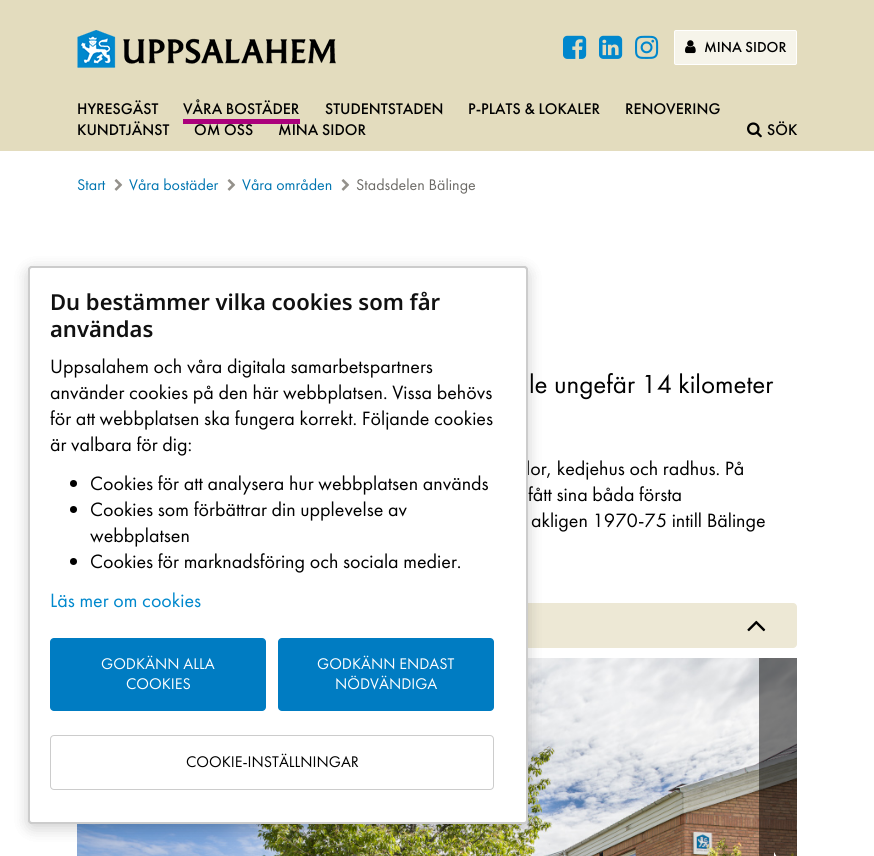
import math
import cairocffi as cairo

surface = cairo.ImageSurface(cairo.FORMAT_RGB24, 874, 856)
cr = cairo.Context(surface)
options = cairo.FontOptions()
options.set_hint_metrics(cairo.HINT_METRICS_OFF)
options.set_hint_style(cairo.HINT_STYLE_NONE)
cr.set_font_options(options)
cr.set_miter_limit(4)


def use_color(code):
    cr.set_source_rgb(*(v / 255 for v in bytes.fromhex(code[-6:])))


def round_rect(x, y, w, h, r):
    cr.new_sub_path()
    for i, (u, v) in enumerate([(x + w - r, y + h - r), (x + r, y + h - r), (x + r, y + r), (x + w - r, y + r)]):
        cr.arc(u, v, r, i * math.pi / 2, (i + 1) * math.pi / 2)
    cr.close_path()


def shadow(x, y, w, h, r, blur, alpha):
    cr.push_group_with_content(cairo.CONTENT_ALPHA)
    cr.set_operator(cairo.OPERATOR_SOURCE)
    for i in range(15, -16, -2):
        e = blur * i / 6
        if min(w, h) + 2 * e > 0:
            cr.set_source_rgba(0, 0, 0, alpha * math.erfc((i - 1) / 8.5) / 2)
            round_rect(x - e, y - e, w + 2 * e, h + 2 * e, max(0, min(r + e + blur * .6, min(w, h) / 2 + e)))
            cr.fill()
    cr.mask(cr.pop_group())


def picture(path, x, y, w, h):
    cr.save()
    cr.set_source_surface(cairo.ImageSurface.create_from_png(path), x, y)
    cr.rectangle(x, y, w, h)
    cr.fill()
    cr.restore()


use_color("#ffffff")
cr.paint()
use_color("#e3dcbe")
cr.rectangle(0, 0, 874, 151)
cr.fill()
picture("img1.png", 77, 30, 259, 38)
picture("img2.png", 563, 35, 24, 24)
picture("img3.png", 599, 35, 24, 24)
picture("img4.png", 635, 35, 24, 24)
use_color("#f6f4ea")
round_rect(674.5, 30.5, 122, 34, 1.5)
cr.fill_preserve()
use_color("#ffffff")
cr.set_line_width(1)
cr.stroke()
picture("img5.png", 685, 40, 11, 14)
cr.select_font_face("Futura PT Medium")
cr.set_font_size(15)
use_color("#000000")
cr.move_to(704, 52)
cr.show_text("MINA SIDOR")
cr.set_font_size(16)
cr.move_to(77, 114)
cr.show_text("HYRESGÄST")
cr.move_to(183, 114)
cr.show_text("VÅRA BOSTÄDER")
use_color("#ab007c")
cr.rectangle(183, 119, 117, 5)
cr.fill()
use_color("#000000")
cr.move_to(325, 114)
cr.show_text("STUDENTSTADEN")
cr.move_to(468, 114)
cr.show_text("P-PLATS & LOKALER")
cr.move_to(625, 114)
cr.show_text("RENOVERING")
cr.move_to(77, 135)
cr.show_text("KUNDTJÄNST")
cr.move_to(194, 135)
cr.show_text("OM OSS")
cr.move_to(278, 135)
cr.show_text("MINA SIDOR")
picture("img6.png", 747, 122, 15, 16)
cr.move_to(767, 135)
cr.show_text("SÖK")
cr.select_font_face("Futura PT")
use_color("#0075b1")
cr.move_to(77, 190)
cr.show_text("Start")
picture("img7.png", 114, 179, 9, 12)
cr.move_to(129, 190)
cr.show_text("Våra bostäder")
picture("img7.png", 227, 179, 9, 12)
cr.move_to(242, 190)
cr.show_text("Våra områden")
picture("img7.png", 341, 179, 9, 12)
use_color("#6c6a66")
cr.move_to(356, 190)
cr.show_text("Stadsdelen Bälinge")
cr.set_font_size(27)
use_color("#000000")
cr.move_to(529, 393)
cr.show_text("le ungefär 14 kilometer")
cr.set_font_size(20)
cr.move_to(526, 475)
cr.show_text("lor, kedjehus och radhus. På")
cr.move_to(528, 501)
cr.show_text("fått sina båda första")
cr.move_to(531, 527)
cr.show_text("akligen 1970-75 intill Bälinge")
use_color("#ede8d5")
round_rect(77, 603, 720, 45, 4)
cr.fill()
picture("img8.png", 747, 620, 19, 12)
picture("img9.png", 77, 658, 720, 198)
cr.set_source_rgba(0, 0, 0, 0.5)
cr.rectangle(759, 658, 38, 198)
cr.fill()
use_color("#ffffff")
cr.new_path()
cr.move_to(774, 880)
cr.line_to(774, 852)
cr.line_to(782, 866)
cr.close_path()
cr.fill()
use_color("#000000")
shadow(28, 270, 500, 558, 4, 7.5, 0.1)
round_rect(29, 267, 498, 556, 3)
use_color("#cccccc")
cr.set_line_width(2)
cr.stroke()
use_color("#000000")
shadow(28, 270, 500, 558, 4, 7.5, 0.1)
use_color("#ffffff")
round_rect(29, 267, 498, 556, 3)
cr.fill_preserve()
use_color("#cccccc")
cr.stroke()
cr.select_font_face("Noto Sans SemiBold")
cr.set_font_size(22)
use_color("#111111")
cr.move_to(50, 310)
cr.show_text("Du bestämmer vilka cookies som får")
cr.move_to(50, 337)
cr.show_text("användas")
cr.select_font_face("Futura PT")
cr.set_font_size(20)
use_color("#000000")
cr.move_to(50, 373)
cr.show_text("Uppsalahem och våra digitala samarbetspartners")
cr.move_to(50, 399)
cr.show_text("använder cookies på den här webbplatsen. Vissa behövs")
cr.move_to(50, 425)
cr.show_text("för att webbplatsen ska fungera korrekt. Följande cookies")
cr.move_to(50, 451)
cr.show_text("är valbara för dig:")
cr.new_path()
cr.arc(73.5, 483.5, 3.5, 0, 2 * math.pi)
cr.fill()
cr.move_to(90, 490)
cr.show_text("Cookies för att analysera hur webbplatsen används")
cr.new_path()
cr.arc(73.5, 509.5, 3.5, 0, 2 * math.pi)
cr.fill()
cr.move_to(90, 516)
cr.show_text("Cookies som förbättrar din upplevelse av")
cr.move_to(90, 542)
cr.show_text("webbplatsen")
cr.new_path()
cr.arc(73.5, 561.5, 3.5, 0, 2 * math.pi)
cr.fill()
cr.move_to(90, 568)
cr.show_text("Cookies för marknadsföring och sociala medier.")
use_color("#0088cd")
cr.move_to(50, 607)
cr.show_text("Läs mer om cookies")
use_color("#007cc2")
round_rect(50, 638, 216, 73, 4)
cr.fill()
cr.set_font_size(16)
use_color("#ffffff")
cr.move_to(101, 669)
cr.show_text("GODKÄNN ALLA")
cr.move_to(126, 689)
cr.show_text("COOKIES")
use_color("#007cc2")
round_rect(278, 638, 216, 73, 4)
cr.fill()
use_color("#ffffff")
cr.move_to(317, 669)
cr.show_text("GODKÄNN ENDAST")
cr.move_to(335, 689)
cr.show_text("NÖDVÄNDIGA")
round_rect(50.5, 735.5, 443, 54, 3.5)
use_color("#cccccc")
cr.set_line_width(1)
cr.stroke()
use_color("#000000")
cr.move_to(186, 767)
cr.show_text("COOKIE-INSTÄLLNINGAR")
surface.write_to_png("result.png")
